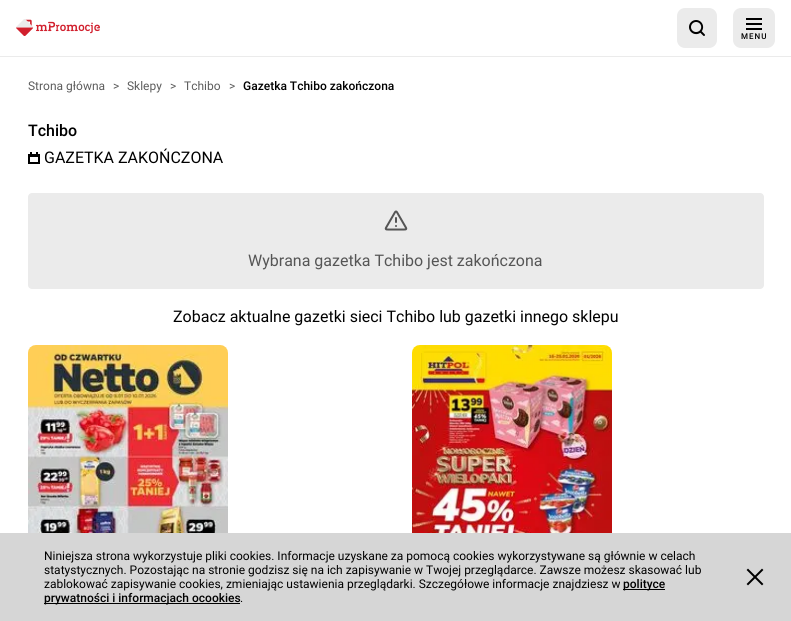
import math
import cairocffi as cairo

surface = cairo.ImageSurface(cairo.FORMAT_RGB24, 791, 621)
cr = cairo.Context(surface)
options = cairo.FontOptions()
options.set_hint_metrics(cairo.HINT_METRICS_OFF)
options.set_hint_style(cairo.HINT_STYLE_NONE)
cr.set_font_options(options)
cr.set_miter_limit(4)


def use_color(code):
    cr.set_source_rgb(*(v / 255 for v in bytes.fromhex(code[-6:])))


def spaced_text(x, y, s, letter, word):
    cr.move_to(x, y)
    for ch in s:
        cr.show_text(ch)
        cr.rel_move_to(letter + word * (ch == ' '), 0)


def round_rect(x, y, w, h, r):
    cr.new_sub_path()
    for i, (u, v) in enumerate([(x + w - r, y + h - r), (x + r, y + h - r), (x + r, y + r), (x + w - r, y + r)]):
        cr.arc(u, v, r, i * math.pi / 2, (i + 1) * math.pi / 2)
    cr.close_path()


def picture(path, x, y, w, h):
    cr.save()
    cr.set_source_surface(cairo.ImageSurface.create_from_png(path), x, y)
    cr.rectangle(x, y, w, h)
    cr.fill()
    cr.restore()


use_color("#ffffff")
cr.paint()
use_color("#ebebeb")
cr.rectangle(0, 56, 791, 1)
cr.fill()
picture("img1.png", 16, 19, 84, 17)
round_rect(677, 8, 40, 40, 8)
cr.fill()
picture("img2.png", 689, 20, 16, 16)
round_rect(733, 8, 42, 40, 8)
cr.fill()
picture("img3.png", 746, 18, 16, 12)
cr.select_font_face("Roboto Medium")
cr.set_font_size(8)
use_color("#000000")
spaced_text(741, 39, "MENU", 1, 0)
cr.select_font_face("Roboto")
cr.set_font_size(12)
use_color("#5c5c5c")
cr.move_to(28, 90)
cr.show_text("Strona główna")
cr.move_to(113, 90)
cr.show_text(">")
cr.move_to(127, 90)
cr.show_text("Sklepy")
cr.move_to(170, 90)
cr.show_text(">")
cr.move_to(184, 90)
cr.show_text("Tchibo")
cr.move_to(229, 90)
cr.show_text(">")
cr.select_font_face("Roboto Medium")
use_color("#000000")
cr.move_to(243, 90)
cr.show_text("Gazetka Tchibo zakończona")
cr.set_font_size(16)
cr.move_to(28, 136)
cr.show_text("Tchibo")
picture("img4.png", 28, 152, 12, 12)
cr.select_font_face("Roboto")
cr.move_to(44, 163)
cr.show_text("GAZETKA ZAKOŃCZONA")
use_color("#ebebeb")
round_rect(28, 193, 736, 96, 4)
cr.fill()
picture("img5.png", 384, 210, 24, 21)
use_color("#555555")
cr.move_to(248, 266)
cr.show_text("Wybrana gazetka Tchibo jest zakończona")
use_color("#000000")
cr.move_to(173, 322)
cr.show_text("Zobacz aktualne gazetki sieci Tchibo lub gazetki innego sklepu")
picture("img6.png", 28, 345, 200, 188)
picture("img7.png", 412, 345, 200, 188)
use_color("#d6d6d6")
cr.rectangle(0, 533, 791, 88)
cr.fill()
cr.set_font_size(12)
use_color("#000000")
cr.move_to(44, 560)
cr.show_text("Niniejsza strona wykorzystuje pliki cookies. Informacje uzyskane za pomocą cookies wykorzystywane są głównie w celach")
cr.move_to(44, 574)
cr.show_text("statystycznych. Pozostając na stronie godzisz się na ich zapisywanie w Twojej przeglądarce. Zawsze możesz skasować lub")
cr.move_to(44, 588)
cr.show_text("zablokować zapisywanie cookies, zmieniając ustawienia przeglądarki. Szczegółowe informacje znajdziesz w")
cr.rectangle(623, 589, 42, 1)
cr.fill()
cr.select_font_face("Roboto Medium")
cr.move_to(623, 588)
cr.show_text("polityce")
cr.rectangle(44, 603, 196, 1)
cr.fill()
cr.move_to(44, 602)
cr.show_text("prywatności i informacjach ocookies")
cr.select_font_face("Roboto")
cr.move_to(240, 602)
cr.show_text(".")
picture("img8.png", 746, 568, 18, 18)
surface.write_to_png("result.png")
